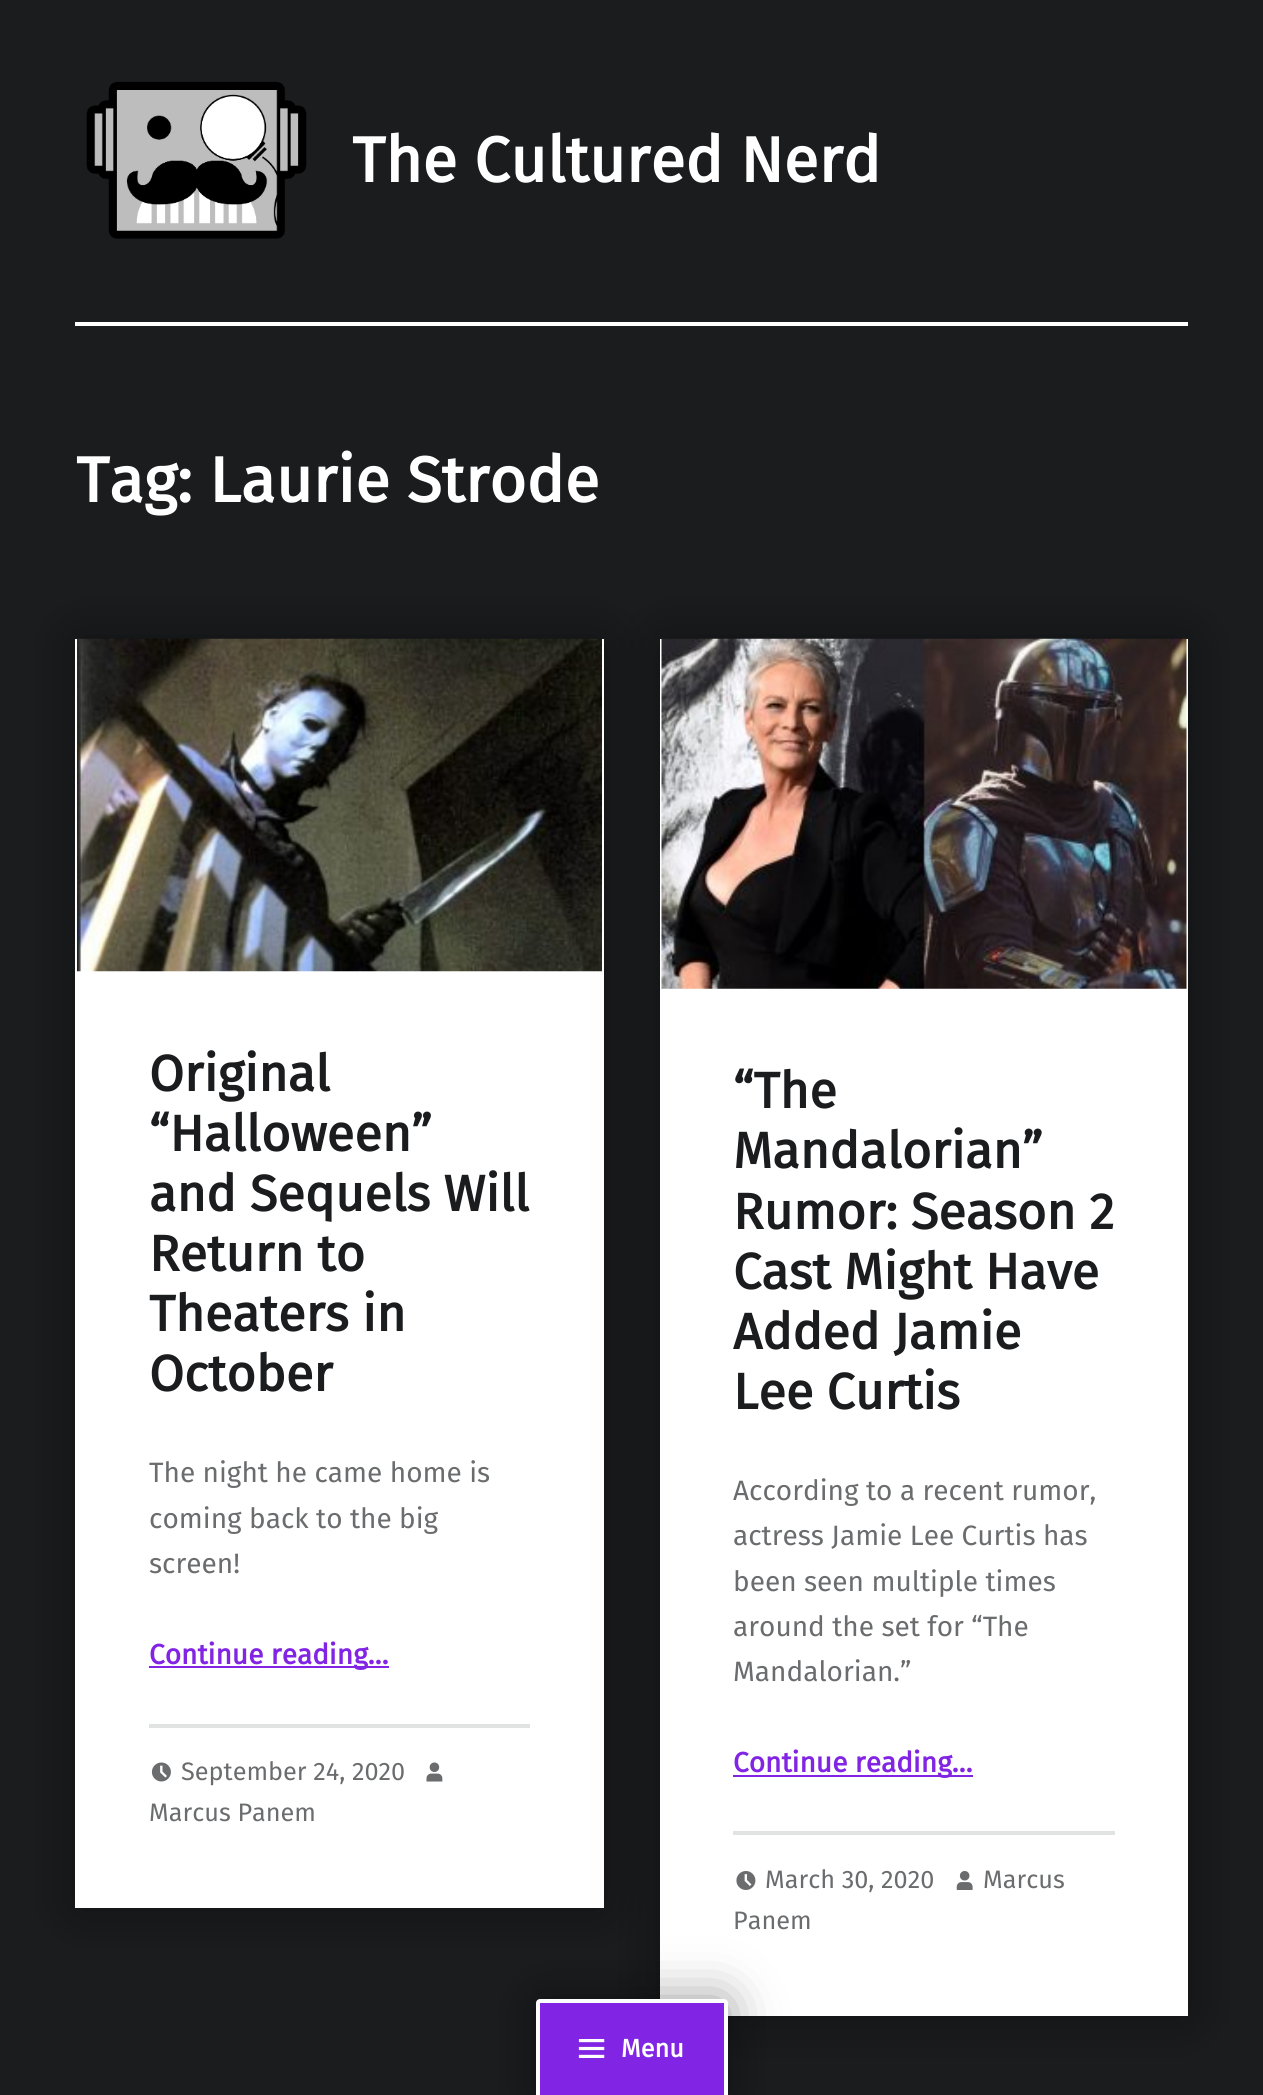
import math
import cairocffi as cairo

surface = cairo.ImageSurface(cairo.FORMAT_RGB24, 1263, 2095)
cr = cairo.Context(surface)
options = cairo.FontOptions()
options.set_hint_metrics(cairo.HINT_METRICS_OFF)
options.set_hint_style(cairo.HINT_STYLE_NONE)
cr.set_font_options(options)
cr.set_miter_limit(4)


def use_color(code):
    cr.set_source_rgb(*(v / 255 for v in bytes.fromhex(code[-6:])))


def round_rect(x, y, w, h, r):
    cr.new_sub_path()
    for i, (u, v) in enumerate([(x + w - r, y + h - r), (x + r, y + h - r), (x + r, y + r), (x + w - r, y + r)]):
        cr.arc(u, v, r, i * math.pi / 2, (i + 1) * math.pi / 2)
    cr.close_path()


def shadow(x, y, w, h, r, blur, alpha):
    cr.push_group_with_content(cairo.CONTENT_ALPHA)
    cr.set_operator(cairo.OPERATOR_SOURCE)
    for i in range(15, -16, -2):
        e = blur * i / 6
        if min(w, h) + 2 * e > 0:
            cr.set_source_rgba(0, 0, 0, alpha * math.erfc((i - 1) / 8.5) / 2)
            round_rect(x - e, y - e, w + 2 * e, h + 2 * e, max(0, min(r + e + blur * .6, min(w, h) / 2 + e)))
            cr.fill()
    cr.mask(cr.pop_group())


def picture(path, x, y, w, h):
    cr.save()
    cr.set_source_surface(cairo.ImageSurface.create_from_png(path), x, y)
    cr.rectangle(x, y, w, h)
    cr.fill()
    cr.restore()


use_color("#1a1c1e")
cr.paint()
picture("img1.png", 86, 81, 221, 158)
cr.select_font_face("Fira Sans", cairo.FONT_SLANT_NORMAL, cairo.FONT_WEIGHT_BOLD)
cr.set_font_size(63.75)
use_color("#ffffff")
cr.move_to(352, 182)
cr.show_text("The Cultured Nerd")
use_color("#000000")
shadow(75, 639, 529, 1269, 0, 28, 0.4)
use_color("#ffffff")
cr.rectangle(75, 639, 529, 1269)
cr.fill()
picture("img3.png", 77, 638, 525, 334)
use_color("#000000")
shadow(660, 639, 528, 1377, 0, 28, 0.4)
use_color("#ffffff")
cr.rectangle(660, 639, 528, 1377)
cr.fill()
use_color("#000000")
shadow(536, 1999, 192, 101, 4, 25.5, 0.4)
use_color("#8224e3")
round_rect(538, 2001, 188, 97, 2)
cr.fill_preserve()
use_color("#ffffff")
cr.set_line_width(4)
cr.stroke()
picture("img2.png", 578, 2039, 27, 19)
cr.set_font_size(25.25)
cr.move_to(621, 2057)
cr.show_text("Menu")
cr.rectangle(75, 322, 1113, 4)
cr.fill()
cr.set_font_size(63.75)
cr.move_to(76, 502)
cr.show_text("Tag: Laurie Strode")
cr.set_font_size(50.5)
use_color("#1a1c1e")
cr.move_to(149, 1091)
cr.show_text("Original")
cr.move_to(149, 1151)
cr.show_text("“Halloween”")
cr.move_to(149, 1211)
cr.show_text("and Sequels Will")
cr.move_to(149, 1271)
cr.show_text("Return to")
cr.move_to(149, 1331)
cr.show_text("Theaters in")
cr.move_to(149, 1391)
cr.show_text("October")
cr.select_font_face("Fira Sans")
cr.set_font_size(28)
use_color("#6a6c6e")
cr.move_to(149, 1482)
cr.show_text("The night he came home is")
cr.move_to(149, 1528)
cr.show_text("coming back to the big")
cr.move_to(149, 1573)
cr.show_text("screen!")
use_color("#8224e3")
cr.rectangle(149, 1666, 240, 2)
cr.fill()
cr.select_font_face("Fira Sans", cairo.FONT_SLANT_NORMAL, cairo.FONT_WEIGHT_BOLD)
cr.move_to(149, 1664)
cr.show_text("Continue reading…")
use_color("#e1e2e2")
cr.rectangle(149, 1724, 381, 4)
cr.fill()
picture("img4.png", 151, 1762, 20, 20)
cr.select_font_face("Fira Sans")
cr.set_font_size(25.25)
use_color("#6a6c6e")
cr.move_to(181, 1780)
cr.show_text("September 24, 2020")
picture("img5.png", 426, 1762, 17, 20)
cr.move_to(149, 1821)
cr.show_text("Marcus Panem")
picture("img6.png", 661, 638, 526, 351)
cr.select_font_face("Fira Sans", cairo.FONT_SLANT_NORMAL, cairo.FONT_WEIGHT_BOLD)
cr.set_font_size(50.5)
use_color("#1a1c1e")
cr.move_to(733, 1108)
cr.show_text("“The")
cr.move_to(733, 1168)
cr.show_text("Mandalorian”")
cr.move_to(733, 1229)
cr.show_text("Rumor: Season 2")
cr.move_to(733, 1289)
cr.show_text("Cast Might Have")
cr.move_to(733, 1349)
cr.show_text("Added Jamie")
cr.move_to(733, 1409)
cr.show_text("Lee Curtis")
cr.select_font_face("Fira Sans")
cr.set_font_size(28)
use_color("#6a6c6e")
cr.move_to(733, 1500)
cr.show_text("According to a recent rumor,")
cr.move_to(733, 1545)
cr.show_text("actress Jamie Lee Curtis has")
cr.move_to(733, 1591)
cr.show_text("been seen multiple times")
cr.move_to(733, 1636)
cr.show_text("around the set for “The")
cr.move_to(733, 1681)
cr.show_text("Mandalorian.”")
use_color("#8224e3")
cr.rectangle(733, 1775, 240, 2)
cr.fill()
cr.select_font_face("Fira Sans", cairo.FONT_SLANT_NORMAL, cairo.FONT_WEIGHT_BOLD)
cr.move_to(733, 1772)
cr.show_text("Continue reading…")
use_color("#e1e2e2")
cr.rectangle(733, 1831, 382, 4)
cr.fill()
picture("img7.png", 736, 1871, 20, 19)
cr.select_font_face("Fira Sans")
cr.set_font_size(25.25)
use_color("#6a6c6e")
cr.move_to(765, 1888)
cr.show_text("March 30, 2020")
picture("img8.png", 956, 1871, 17, 19)
cr.move_to(983, 1888)
cr.show_text("Marcus")
cr.move_to(733, 1929)
cr.show_text("Panem")
surface.write_to_png("result.png")
